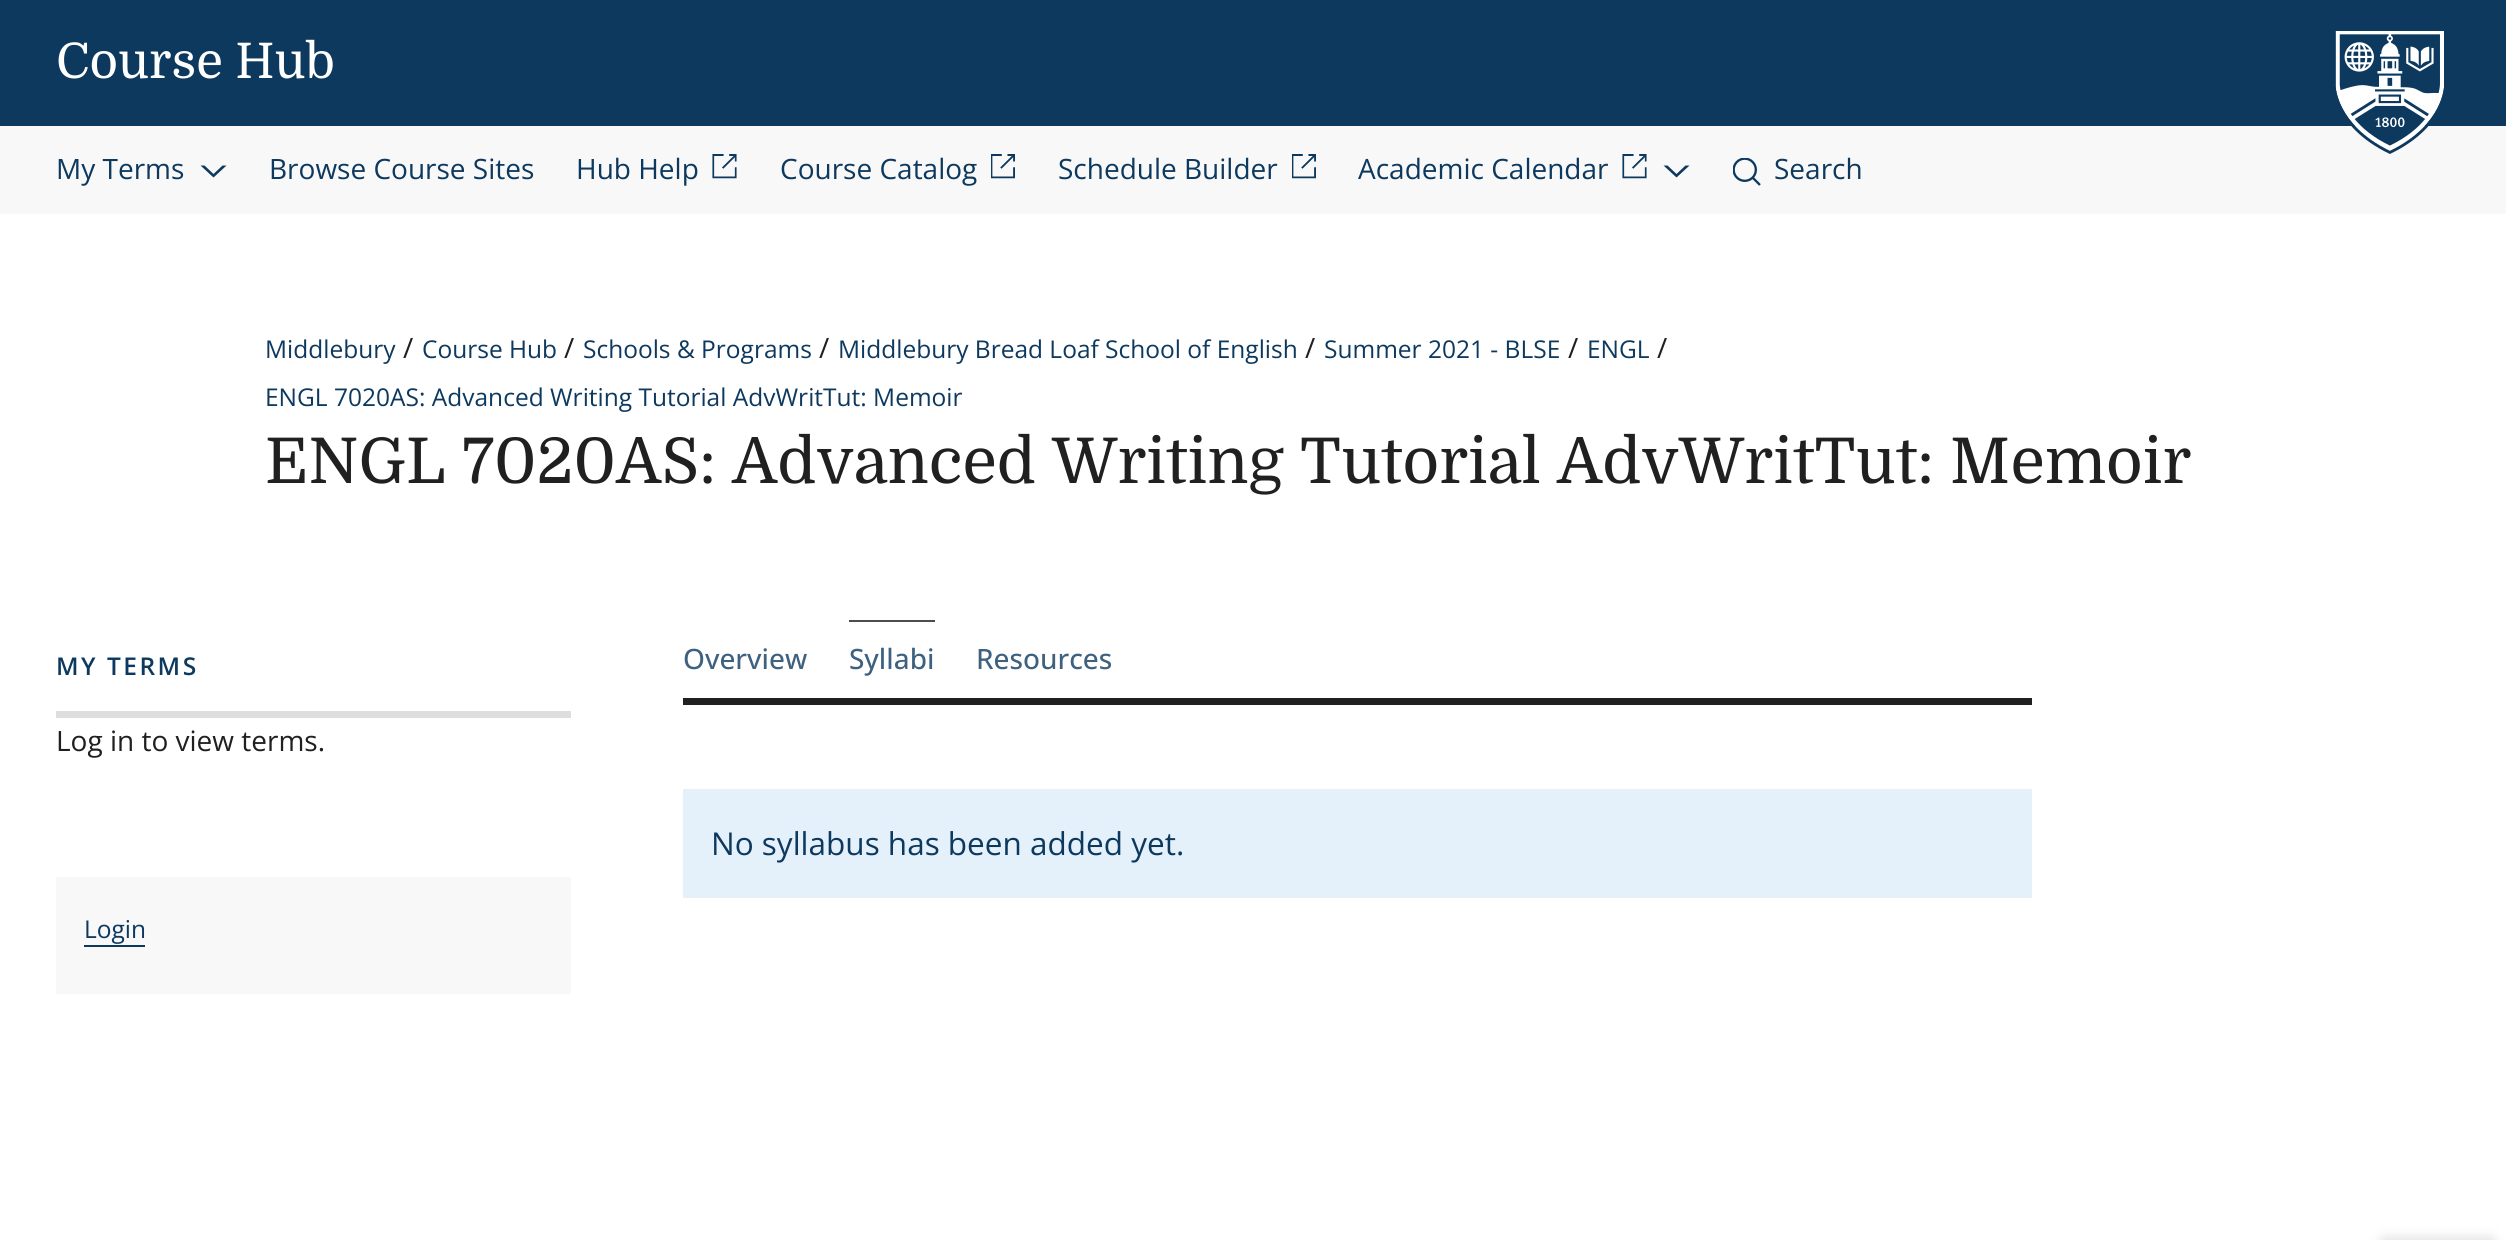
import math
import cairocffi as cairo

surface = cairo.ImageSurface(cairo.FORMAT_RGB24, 2506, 1240)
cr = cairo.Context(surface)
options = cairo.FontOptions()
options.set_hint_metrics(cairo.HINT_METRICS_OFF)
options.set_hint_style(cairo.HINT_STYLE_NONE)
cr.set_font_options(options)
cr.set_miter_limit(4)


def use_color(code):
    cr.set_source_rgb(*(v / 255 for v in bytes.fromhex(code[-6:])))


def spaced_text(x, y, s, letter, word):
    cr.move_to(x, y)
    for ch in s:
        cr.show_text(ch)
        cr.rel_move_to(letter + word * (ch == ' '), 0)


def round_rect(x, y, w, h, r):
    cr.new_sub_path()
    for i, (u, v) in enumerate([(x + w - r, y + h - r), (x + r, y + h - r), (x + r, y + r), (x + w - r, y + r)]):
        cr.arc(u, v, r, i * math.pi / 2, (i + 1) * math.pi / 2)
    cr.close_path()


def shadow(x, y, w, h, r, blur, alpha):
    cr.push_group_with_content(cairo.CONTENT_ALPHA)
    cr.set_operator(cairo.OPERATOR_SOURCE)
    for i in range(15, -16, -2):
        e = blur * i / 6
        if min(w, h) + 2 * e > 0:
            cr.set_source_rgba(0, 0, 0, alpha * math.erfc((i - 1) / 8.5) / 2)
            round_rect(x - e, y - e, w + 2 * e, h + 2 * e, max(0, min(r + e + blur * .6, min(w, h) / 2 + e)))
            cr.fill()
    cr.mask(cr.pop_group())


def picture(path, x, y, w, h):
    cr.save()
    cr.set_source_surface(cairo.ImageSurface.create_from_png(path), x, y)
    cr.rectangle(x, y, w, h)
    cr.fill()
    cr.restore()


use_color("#ffffff")
cr.paint()
use_color("#0d395f")
cr.rectangle(0, 0, 2506, 126)
cr.fill()
cr.select_font_face("Domine")
cr.set_font_size(49)
use_color("#ffffff")
cr.move_to(56, 78)
cr.show_text("Course Hub")
use_color("#f8f8f8")
cr.rectangle(0, 126, 2506, 88)
cr.fill()
picture("img1.png", 2335, 30, 109, 124)
cr.select_font_face("Open Sans")
cr.set_font_size(28)
use_color("#0d395f")
cr.move_to(56, 179)
cr.show_text("My Terms")
cr.new_path()
cr.move_to(204.5, 165.5)
cr.line_to(200.5, 165.5)
cr.line_to(213.5, 177.5)
cr.line_to(226.5, 165.5)
cr.line_to(222.5, 165.5)
cr.line_to(213.5, 174)
cr.close_path()
cr.fill()
cr.move_to(269, 179)
cr.show_text("Browse Course Sites")
cr.move_to(576, 179)
cr.show_text("Hub Help")
picture("img2.png", 712, 154, 25, 25)
cr.move_to(780, 179)
cr.show_text("Course Catalog")
picture("img3.png", 991, 154, 24, 25)
cr.move_to(1058, 179)
cr.show_text("Schedule Builder")
picture("img3.png", 1292, 154, 24, 25)
cr.move_to(1358, 179)
cr.show_text("Academic Calendar")
picture("img2.png", 1622, 154, 25, 25)
cr.new_path()
cr.move_to(1667.5, 165.5)
cr.line_to(1663.5, 165.5)
cr.line_to(1676.5, 177.5)
cr.line_to(1689.5, 165.5)
cr.line_to(1685.5, 165.5)
cr.line_to(1676.5, 174)
cr.close_path()
cr.fill()
picture("img4.png", 1733, 158, 28, 28)
cr.move_to(1774, 179)
cr.show_text("Search")
cr.set_font_size(24.5)
cr.move_to(265, 358)
cr.show_text("Middlebury")
cr.set_font_size(28)
use_color("#202020")
cr.move_to(403, 358)
cr.show_text("/")
cr.set_font_size(24.5)
use_color("#0d395f")
cr.move_to(422, 358)
cr.show_text("Course Hub")
cr.set_font_size(28)
use_color("#202020")
cr.move_to(564, 358)
cr.show_text("/")
cr.set_font_size(24.5)
use_color("#0d395f")
cr.move_to(583, 358)
cr.show_text("Schools & Programs")
cr.set_font_size(28)
use_color("#202020")
cr.move_to(819, 358)
cr.show_text("/")
cr.set_font_size(24.5)
use_color("#0d395f")
cr.move_to(838, 358)
cr.show_text("Middlebury Bread Loaf School of English")
cr.set_font_size(28)
use_color("#202020")
cr.move_to(1305, 358)
cr.show_text("/")
cr.set_font_size(24.5)
use_color("#0d395f")
cr.move_to(1324, 358)
cr.show_text("Summer 2021 - BLSE")
cr.set_font_size(28)
use_color("#202020")
cr.move_to(1568, 358)
cr.show_text("/")
cr.set_font_size(24.5)
use_color("#0d395f")
cr.move_to(1587, 358)
cr.show_text("ENGL")
cr.set_font_size(28)
use_color("#202020")
cr.move_to(1657, 358)
cr.show_text("/")
cr.set_font_size(24.5)
use_color("#0d395f")
cr.move_to(265, 406)
cr.show_text("ENGL 7020AS: Advanced Writing Tutorial AdvWritTut: Memoir")
cr.select_font_face("Domine")
cr.set_font_size(63)
use_color("#202020")
cr.move_to(265, 483)
cr.show_text("ENGL 7020AS: Advanced Writing Tutorial AdvWritTut: Memoir")
use_color("#dedede")
cr.rectangle(56, 711, 515, 7)
cr.fill()
cr.select_font_face("Open Sans SemiBold")
cr.set_font_size(24.5)
use_color("#0d395f")
spaced_text(56, 675, "MY TERMS", 2.5, 0)
cr.select_font_face("Open Sans")
cr.set_font_size(28)
use_color("#202020")
cr.move_to(56, 751)
cr.show_text("Log in to view terms.")
use_color("#f8f8f8")
cr.rectangle(56, 877, 515, 117)
cr.fill()
cr.set_font_size(24.5)
use_color("#0d395f")
cr.move_to(84, 938)
cr.show_text("Login")
cr.rectangle(84, 945, 61, 2)
cr.fill()
use_color("#202020")
cr.rectangle(683, 698, 1349, 7)
cr.fill()
cr.select_font_face("Open Sans Medium")
cr.set_font_size(28)
use_color("#3d617f")
cr.move_to(683, 669)
cr.show_text("Overview")
use_color("#4d4d4d")
cr.rectangle(849, 620, 86, 2)
cr.fill()
use_color("#3d617f")
cr.move_to(849, 669)
cr.show_text("Syllabi")
cr.move_to(976, 669)
cr.show_text("Resources")
use_color("#e5f1fa")
cr.rectangle(683, 789, 1349, 109)
cr.fill()
cr.select_font_face("Open Sans")
cr.set_font_size(31.5)
use_color("#0d395f")
cr.move_to(711, 855)
cr.show_text("No syllabus has been added yet.")
use_color("#000000")
shadow(2384, 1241, 108, 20, 0, 7, 0.2)
surface.write_to_png("result.png")
